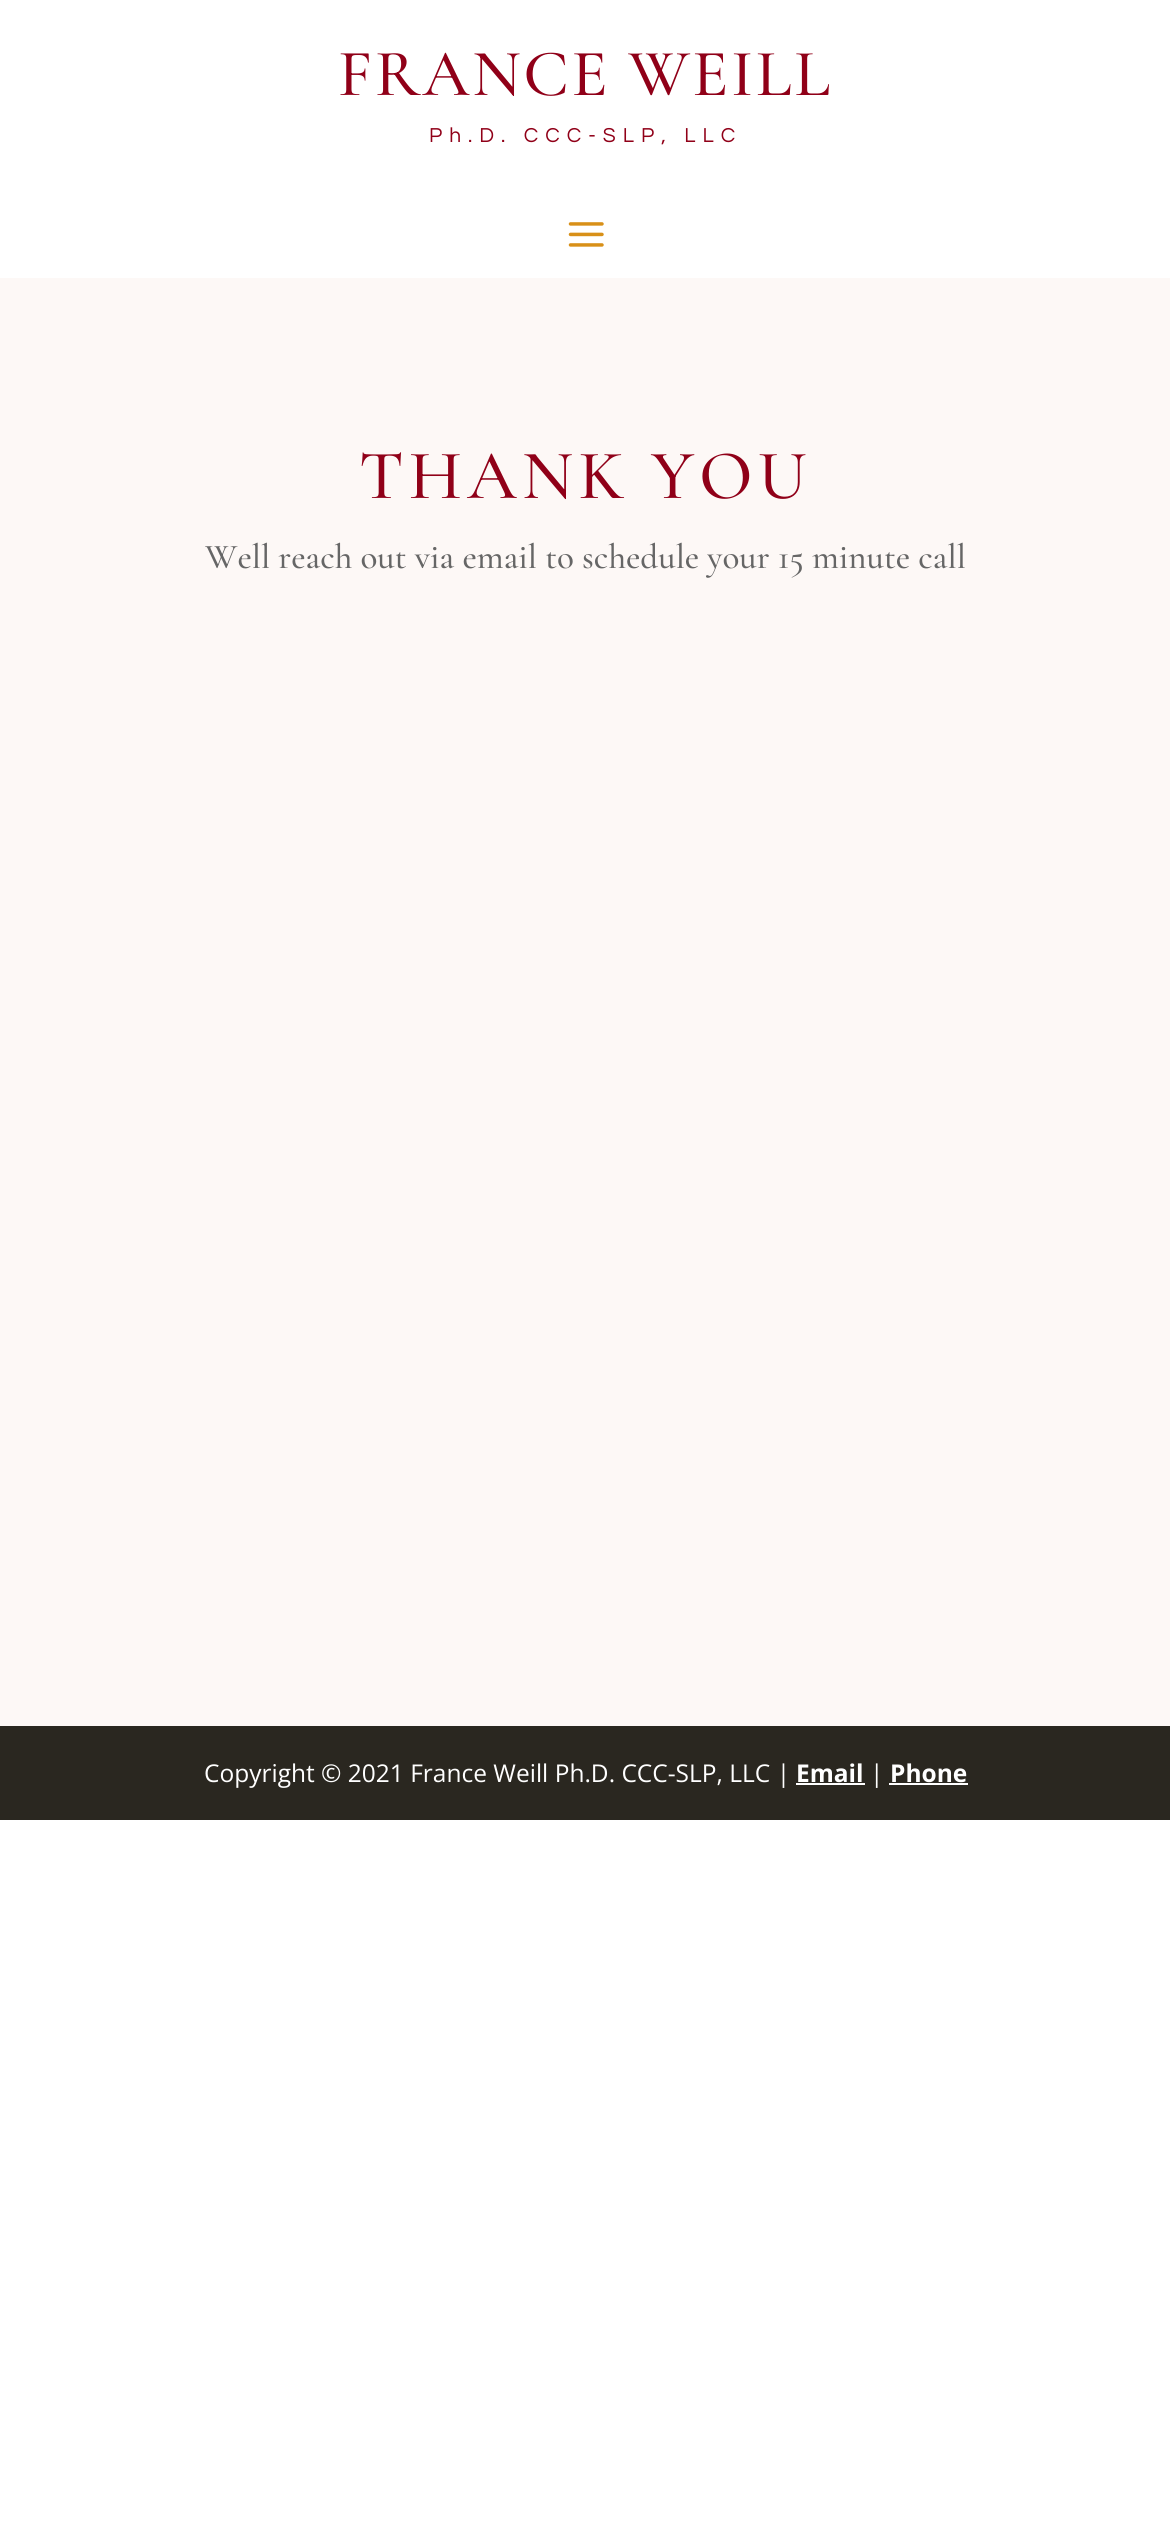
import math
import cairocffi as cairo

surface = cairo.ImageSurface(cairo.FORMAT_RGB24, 1170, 2544)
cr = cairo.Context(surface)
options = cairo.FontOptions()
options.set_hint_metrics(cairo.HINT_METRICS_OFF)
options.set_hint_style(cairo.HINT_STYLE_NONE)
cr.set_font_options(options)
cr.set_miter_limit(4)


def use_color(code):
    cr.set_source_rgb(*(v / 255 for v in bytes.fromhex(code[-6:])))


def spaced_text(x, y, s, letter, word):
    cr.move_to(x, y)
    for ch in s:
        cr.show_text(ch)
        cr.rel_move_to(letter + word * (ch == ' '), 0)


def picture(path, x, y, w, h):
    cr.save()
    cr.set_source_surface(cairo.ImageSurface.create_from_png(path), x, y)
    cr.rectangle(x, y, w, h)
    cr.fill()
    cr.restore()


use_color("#ffffff")
cr.paint()
cr.select_font_face("Cormorant Garamond Light")
cr.set_font_size(66.5)
use_color("#900018")
spaced_text(338, 95, "FRANCE WEILL", 2.6, 0)
cr.select_font_face("Questrial")
cr.set_font_size(21)
spaced_text(429, 142, "Ph.D. CCC-SLP, LLC", 7, 0)
picture("img1.png", 568, 222, 36, 25)
use_color("#fdf8f6")
cr.rectangle(0, 278, 1170, 1448)
cr.fill()
cr.select_font_face("Cormorant Garamond Light")
cr.set_font_size(70)
use_color("#900018")
spaced_text(359, 498, "THANK YOU", 5.25, 0)
cr.set_font_size(35)
use_color("#666666")
cr.move_to(205, 568)
cr.show_text("Well reach out via email to schedule your 15 minute call")
use_color("#2a2720")
cr.rectangle(0, 1726, 1170, 94)
cr.fill()
cr.select_font_face("Open Sans")
cr.set_font_size(24.5)
use_color("#ffffff")
cr.move_to(204, 1782)
cr.show_text("Copyright © 2021 France Weill Ph.D. CCC-SLP, LLC |")
cr.select_font_face("Open Sans", cairo.FONT_SLANT_NORMAL, cairo.FONT_WEIGHT_BOLD)
cr.move_to(796, 1782)
cr.show_text("Email")
cr.rectangle(796, 1783, 69, 2)
cr.fill()
cr.select_font_face("Open Sans")
cr.move_to(870, 1782)
cr.show_text("|")
cr.select_font_face("Open Sans", cairo.FONT_SLANT_NORMAL, cairo.FONT_WEIGHT_BOLD)
cr.move_to(890, 1782)
cr.show_text("Phone")
cr.rectangle(889, 1783, 79, 2)
cr.fill()
surface.write_to_png("result.png")
